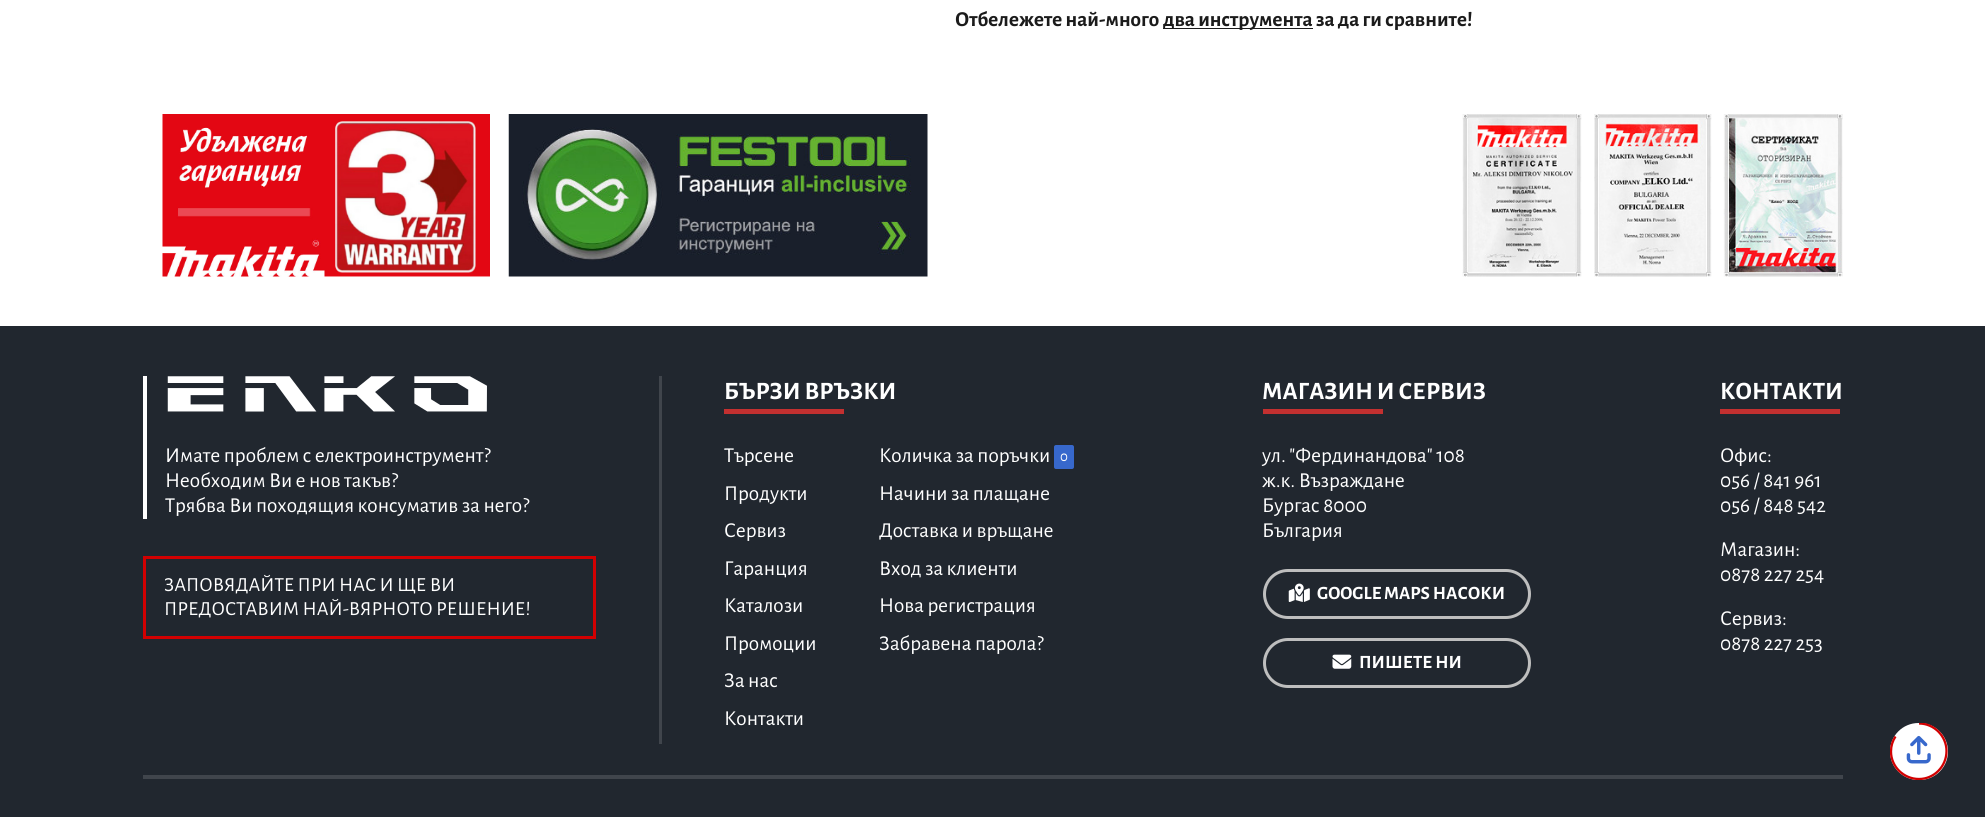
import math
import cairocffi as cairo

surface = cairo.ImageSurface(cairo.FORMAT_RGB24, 1985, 817)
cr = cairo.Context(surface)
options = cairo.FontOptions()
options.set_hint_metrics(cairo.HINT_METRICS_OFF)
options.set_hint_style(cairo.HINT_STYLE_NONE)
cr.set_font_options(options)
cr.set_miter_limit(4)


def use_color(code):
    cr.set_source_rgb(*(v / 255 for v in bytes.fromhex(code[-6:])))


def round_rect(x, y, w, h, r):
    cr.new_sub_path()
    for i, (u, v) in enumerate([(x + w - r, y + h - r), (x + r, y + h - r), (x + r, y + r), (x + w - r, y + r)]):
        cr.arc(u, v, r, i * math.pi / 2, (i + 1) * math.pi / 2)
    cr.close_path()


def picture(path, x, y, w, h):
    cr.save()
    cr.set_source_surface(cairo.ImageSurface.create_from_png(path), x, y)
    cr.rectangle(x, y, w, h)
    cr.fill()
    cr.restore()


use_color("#ffffff")
cr.paint()
cr.select_font_face("Alegreya Sans", cairo.FONT_SLANT_NORMAL, cairo.FONT_WEIGHT_BOLD)
cr.set_font_size(21.25)
use_color("#1b1b1b")
cr.move_to(955, 26)
cr.show_text("Отбележете най-много")
cr.rectangle(1163, 28, 150, 1)
cr.fill()
cr.move_to(1163, 26)
cr.show_text("два инструмента за да ги сравните!")
picture("img1.png", 162, 114, 328, 163)
picture("img2.png", 508, 114, 420, 163)
picture("img3.png", 1462, 114, 120, 163)
picture("img4.png", 1594, 114, 118, 163)
picture("img5.png", 1723, 114, 120, 163)
use_color("#21272f")
cr.rectangle(0, 326, 1985, 491)
cr.fill()
use_color("#40454c")
cr.rectangle(659, 376, 3, 368)
cr.fill()
use_color("#ffffff")
cr.rectangle(143, 376, 4, 143)
cr.fill()
picture("img6.png", 167, 376, 320, 36)
cr.select_font_face("Alegreya Sans")
cr.move_to(165, 462)
cr.show_text("Имате проблем с електроинструмент?")
cr.move_to(165, 487)
cr.show_text("Необходим Ви е нов такъв?")
cr.move_to(165, 512)
cr.show_text("Трябва Ви походящия консуматив за него?")
cr.rectangle(144.5, 557.5, 450, 80)
use_color("#d20001")
cr.set_line_width(3)
cr.stroke()
cr.set_font_size(20)
use_color("#ffffff")
cr.move_to(164, 591)
cr.show_text("ЗАПОВЯДАЙТЕ ПРИ НАС И ЩЕ ВИ")
cr.move_to(164, 615)
cr.show_text("ПРЕДОСТАВИМ НАЙ-ВЯРНОТО РЕШЕНИЕ!")
cr.select_font_face("Alegreya Sans", cairo.FONT_SLANT_NORMAL, cairo.FONT_WEIGHT_BOLD)
cr.set_font_size(25)
cr.move_to(724, 399)
cr.show_text("БЪРЗИ ВРЪЗКИ")
use_color("#c33030")
cr.rectangle(724, 409, 120, 5)
cr.fill()
cr.select_font_face("Alegreya Sans")
cr.set_font_size(21.25)
use_color("#ffffff")
cr.move_to(724, 462)
cr.show_text("Търсене")
cr.move_to(724, 500)
cr.show_text("Продукти")
cr.move_to(724, 537)
cr.show_text("Сервиз")
cr.move_to(724, 575)
cr.show_text("Гаранция")
cr.move_to(724, 612)
cr.show_text("Каталози")
cr.move_to(724, 650)
cr.show_text("Промоции")
cr.move_to(724, 687)
cr.show_text("За нас")
cr.move_to(724, 725)
cr.show_text("Контакти")
cr.move_to(879, 462)
cr.show_text("Количка за поръчки")
use_color("#3768cc")
round_rect(1054, 445, 20, 24, 2)
cr.fill()
cr.set_font_size(15)
use_color("#ffffff")
cr.move_to(1060, 461)
cr.show_text("0")
cr.set_font_size(21.25)
cr.move_to(879, 500)
cr.show_text("Начини за плащане")
cr.move_to(879, 537)
cr.show_text("Доставка и връщане")
cr.move_to(879, 575)
cr.show_text("Вход за клиенти")
cr.move_to(879, 612)
cr.show_text("Нова регистрация")
cr.move_to(879, 650)
cr.show_text("Забравена парола?")
cr.select_font_face("Alegreya Sans", cairo.FONT_SLANT_NORMAL, cairo.FONT_WEIGHT_BOLD)
cr.set_font_size(25)
cr.move_to(1262, 399)
cr.show_text("МАГАЗИН И СЕРВИЗ")
use_color("#c33030")
cr.rectangle(1263, 409, 120, 5)
cr.fill()
cr.select_font_face("Alegreya Sans")
cr.set_font_size(21.25)
use_color("#ffffff")
cr.move_to(1262, 462)
cr.show_text("ул. \"Фердинандова\" 108")
cr.move_to(1262, 487)
cr.show_text("ж.к. Възраждане")
cr.move_to(1262, 512)
cr.show_text("Бургас 8000")
cr.move_to(1262, 537)
cr.show_text("България")
round_rect(1264.5, 570.5, 265, 47, 23.5)
use_color("#bebebe")
cr.stroke()
picture("img7.png", 1288, 583, 22, 19)
cr.select_font_face("Alegreya Sans", cairo.FONT_SLANT_NORMAL, cairo.FONT_WEIGHT_BOLD)
cr.set_font_size(18.75)
use_color("#ffffff")
cr.move_to(1317, 599)
cr.show_text("GOOGLE MAPS НАСОКИ")
round_rect(1264.5, 639.5, 265, 47, 23.5)
use_color("#bebebe")
cr.stroke()
picture("img8.png", 1332, 654, 20, 15)
use_color("#ffffff")
cr.move_to(1359, 668)
cr.show_text("ПИШЕТЕ НИ")
cr.set_font_size(25)
cr.move_to(1720, 399)
cr.show_text("КОНТАКТИ")
use_color("#c33030")
cr.rectangle(1720, 409, 120, 5)
cr.fill()
cr.select_font_face("Alegreya Sans")
cr.set_font_size(21.25)
use_color("#ffffff")
cr.move_to(1720, 462)
cr.show_text("Офис:")
cr.move_to(1720, 487)
cr.show_text("056 / 841 961")
cr.move_to(1720, 512)
cr.show_text("056 / 848 542")
cr.move_to(1720, 556)
cr.show_text("Магазин:")
cr.move_to(1720, 581)
cr.show_text("0878 227 254")
cr.move_to(1720, 625)
cr.show_text("Сервиз:")
cr.move_to(1720, 650)
cr.show_text("0878 227 253")
use_color("#40454c")
cr.rectangle(143, 775, 1700, 4)
cr.fill()
use_color("#ffffff")
round_rect(1890, 723, 58, 57, 28.5)
cr.fill()
cr.save()
cr.rectangle(1890, 723, 58, 57)
cr.clip()
cr.new_path()
cr.move_to(1919, 723.5)
cr.curve_to(1934, 723.5, 1946.5, 736, 1946.5, 751)
cr.curve_to(1946.5, 766.5, 1934, 779, 1919, 779)
cr.curve_to(1903.5, 779, 1891, 766.5, 1891, 751.5)
cr.curve_to(1891, 746, 1892.5, 741, 1895.5, 736.5)
use_color("#d20001")
cr.set_line_width(2.3)
cr.stroke()
cr.restore()
picture("img9.png", 1906, 735, 25, 29)
surface.write_to_png("result.png")
